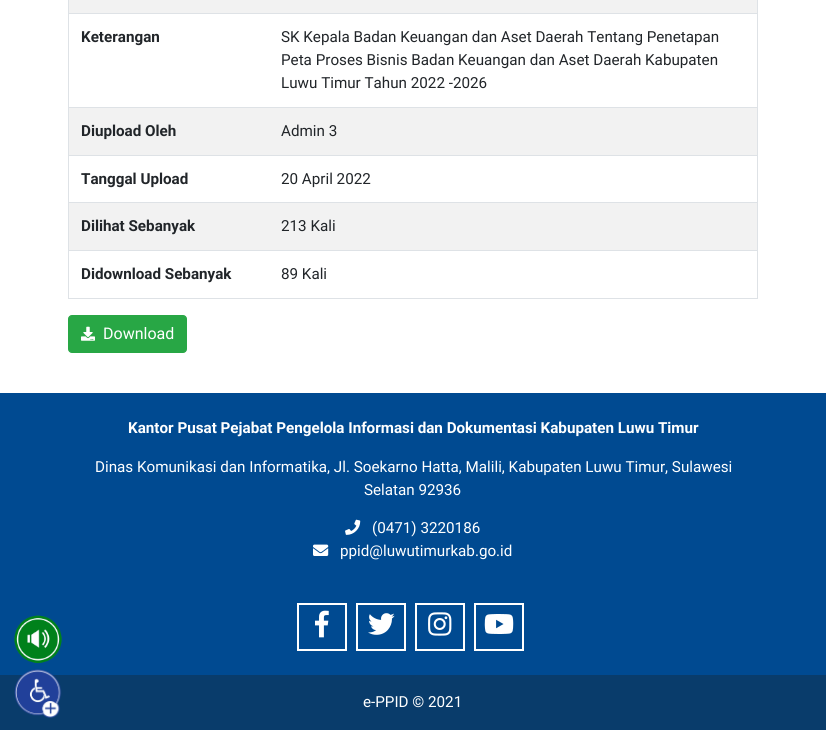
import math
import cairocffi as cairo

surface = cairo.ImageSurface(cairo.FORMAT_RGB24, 826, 730)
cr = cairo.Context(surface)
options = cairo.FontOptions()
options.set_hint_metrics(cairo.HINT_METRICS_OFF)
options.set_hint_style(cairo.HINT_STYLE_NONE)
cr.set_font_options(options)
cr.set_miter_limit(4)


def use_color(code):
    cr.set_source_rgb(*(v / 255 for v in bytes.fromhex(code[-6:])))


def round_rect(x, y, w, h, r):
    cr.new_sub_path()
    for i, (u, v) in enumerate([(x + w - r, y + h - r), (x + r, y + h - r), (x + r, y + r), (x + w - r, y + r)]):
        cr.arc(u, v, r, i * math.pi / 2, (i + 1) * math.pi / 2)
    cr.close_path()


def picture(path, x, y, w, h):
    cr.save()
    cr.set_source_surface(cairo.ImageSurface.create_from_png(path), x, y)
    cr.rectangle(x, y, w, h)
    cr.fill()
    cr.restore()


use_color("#ffffff")
cr.paint()
use_color("#004a91")
cr.rectangle(0, 393, 826, 282)
cr.fill()
use_color("#093c6b")
cr.rectangle(0, 675, 826, 55)
cr.fill()
picture("img1.png", 14, 669, 48, 49)
use_color("#dee2e6")
cr.rectangle(757, 0, 1, 299)
cr.fill()
cr.rectangle(68, 298, 690, 1)
cr.fill()
cr.rectangle(68, 0, 1, 299)
cr.fill()
use_color("#f2f2f2")
cr.rectangle(69, 0, 688, 13)
cr.fill()
cr.select_font_face("Roboto", cairo.FONT_SLANT_NORMAL, cairo.FONT_WEIGHT_BOLD)
cr.set_font_size(15.2)
use_color("#212529")
cr.move_to(81, 42)
cr.show_text("Keterangan")
use_color("#dee2e6")
cr.rectangle(69, 13, 688, 1)
cr.fill()
cr.select_font_face("Roboto")
use_color("#212529")
cr.move_to(281, 42)
cr.show_text("SK Kepala Badan Keuangan dan Aset Daerah Tentang Penetapan")
cr.move_to(281, 65)
cr.show_text("Peta Proses Bisnis Badan Keuangan dan Aset Daerah Kabupaten")
cr.move_to(281, 88)
cr.show_text("Luwu Timur Tahun 2022 -2026")
use_color("#f2f2f2")
cr.rectangle(69, 108, 688, 47)
cr.fill()
cr.select_font_face("Roboto", cairo.FONT_SLANT_NORMAL, cairo.FONT_WEIGHT_BOLD)
use_color("#212529")
cr.move_to(81, 136)
cr.show_text("Diupload Oleh")
use_color("#dee2e6")
cr.rectangle(69, 107, 688, 1)
cr.fill()
cr.select_font_face("Roboto")
use_color("#212529")
cr.move_to(281, 136)
cr.show_text("Admin 3")
cr.select_font_face("Roboto", cairo.FONT_SLANT_NORMAL, cairo.FONT_WEIGHT_BOLD)
cr.move_to(81, 184)
cr.show_text("Tanggal Upload")
use_color("#dee2e6")
cr.rectangle(69, 155, 688, 1)
cr.fill()
cr.select_font_face("Roboto")
use_color("#212529")
cr.move_to(281, 184)
cr.show_text("20 April 2022")
use_color("#f2f2f2")
cr.rectangle(69, 203, 688, 47)
cr.fill()
cr.select_font_face("Roboto", cairo.FONT_SLANT_NORMAL, cairo.FONT_WEIGHT_BOLD)
use_color("#212529")
cr.move_to(81, 231)
cr.show_text("Dilihat Sebanyak")
use_color("#dee2e6")
cr.rectangle(69, 202, 688, 1)
cr.fill()
cr.select_font_face("Roboto")
use_color("#212529")
cr.move_to(281, 231)
cr.show_text("213 Kali")
cr.select_font_face("Roboto", cairo.FONT_SLANT_NORMAL, cairo.FONT_WEIGHT_BOLD)
cr.move_to(81, 279)
cr.show_text("Didownload Sebanyak")
use_color("#dee2e6")
cr.rectangle(69, 250, 688, 1)
cr.fill()
cr.select_font_face("Roboto")
use_color("#212529")
cr.move_to(281, 279)
cr.show_text("89 Kali")
use_color("#28a745")
round_rect(68.5, 315.5, 118, 37, 3.5)
cr.fill_preserve()
cr.set_line_width(1)
cr.stroke()
picture("img2.png", 81, 326, 14, 15)
cr.set_font_size(16)
use_color("#ffffff")
cr.move_to(103, 339)
cr.show_text("Download")
picture("img3.png", 14, 615, 48, 49)
cr.select_font_face("Roboto", cairo.FONT_SLANT_NORMAL, cairo.FONT_WEIGHT_BOLD)
cr.set_font_size(15.2)
cr.move_to(128, 433)
cr.show_text("Kantor Pusat Pejabat Pengelola Informasi dan Dokumentasi Kabupaten Luwu Timur")
cr.select_font_face("Roboto")
cr.move_to(95, 472)
cr.show_text("Dinas Komunikasi dan Informatika, Jl. Soekarno Hatta, Malili, Kabupaten Luwu Timur, Sulawesi")
cr.move_to(364, 495)
cr.show_text("Selatan 92936")
picture("img4.png", 345, 519, 16, 16)
cr.move_to(372, 533)
cr.show_text("(0471) 3220186")
picture("img5.png", 313, 544, 16, 12)
cr.move_to(340, 556)
cr.show_text("ppid@luwutimurkab.go.id")
cr.rectangle(298, 604, 48, 46)
cr.set_line_width(2)
cr.stroke()
picture("img6.png", 315, 610, 14, 28)
cr.rectangle(357, 604, 48, 46)
cr.stroke()
picture("img7.png", 368, 613, 27, 22)
cr.rectangle(416, 604, 48, 46)
cr.stroke()
picture("img8.png", 428, 612, 24, 24)
cr.rectangle(475, 604, 48, 46)
cr.stroke()
picture("img9.png", 484, 614, 30, 20)
cr.move_to(363, 707)
cr.show_text("e-PPID © 2021")
surface.write_to_png("result.png")
